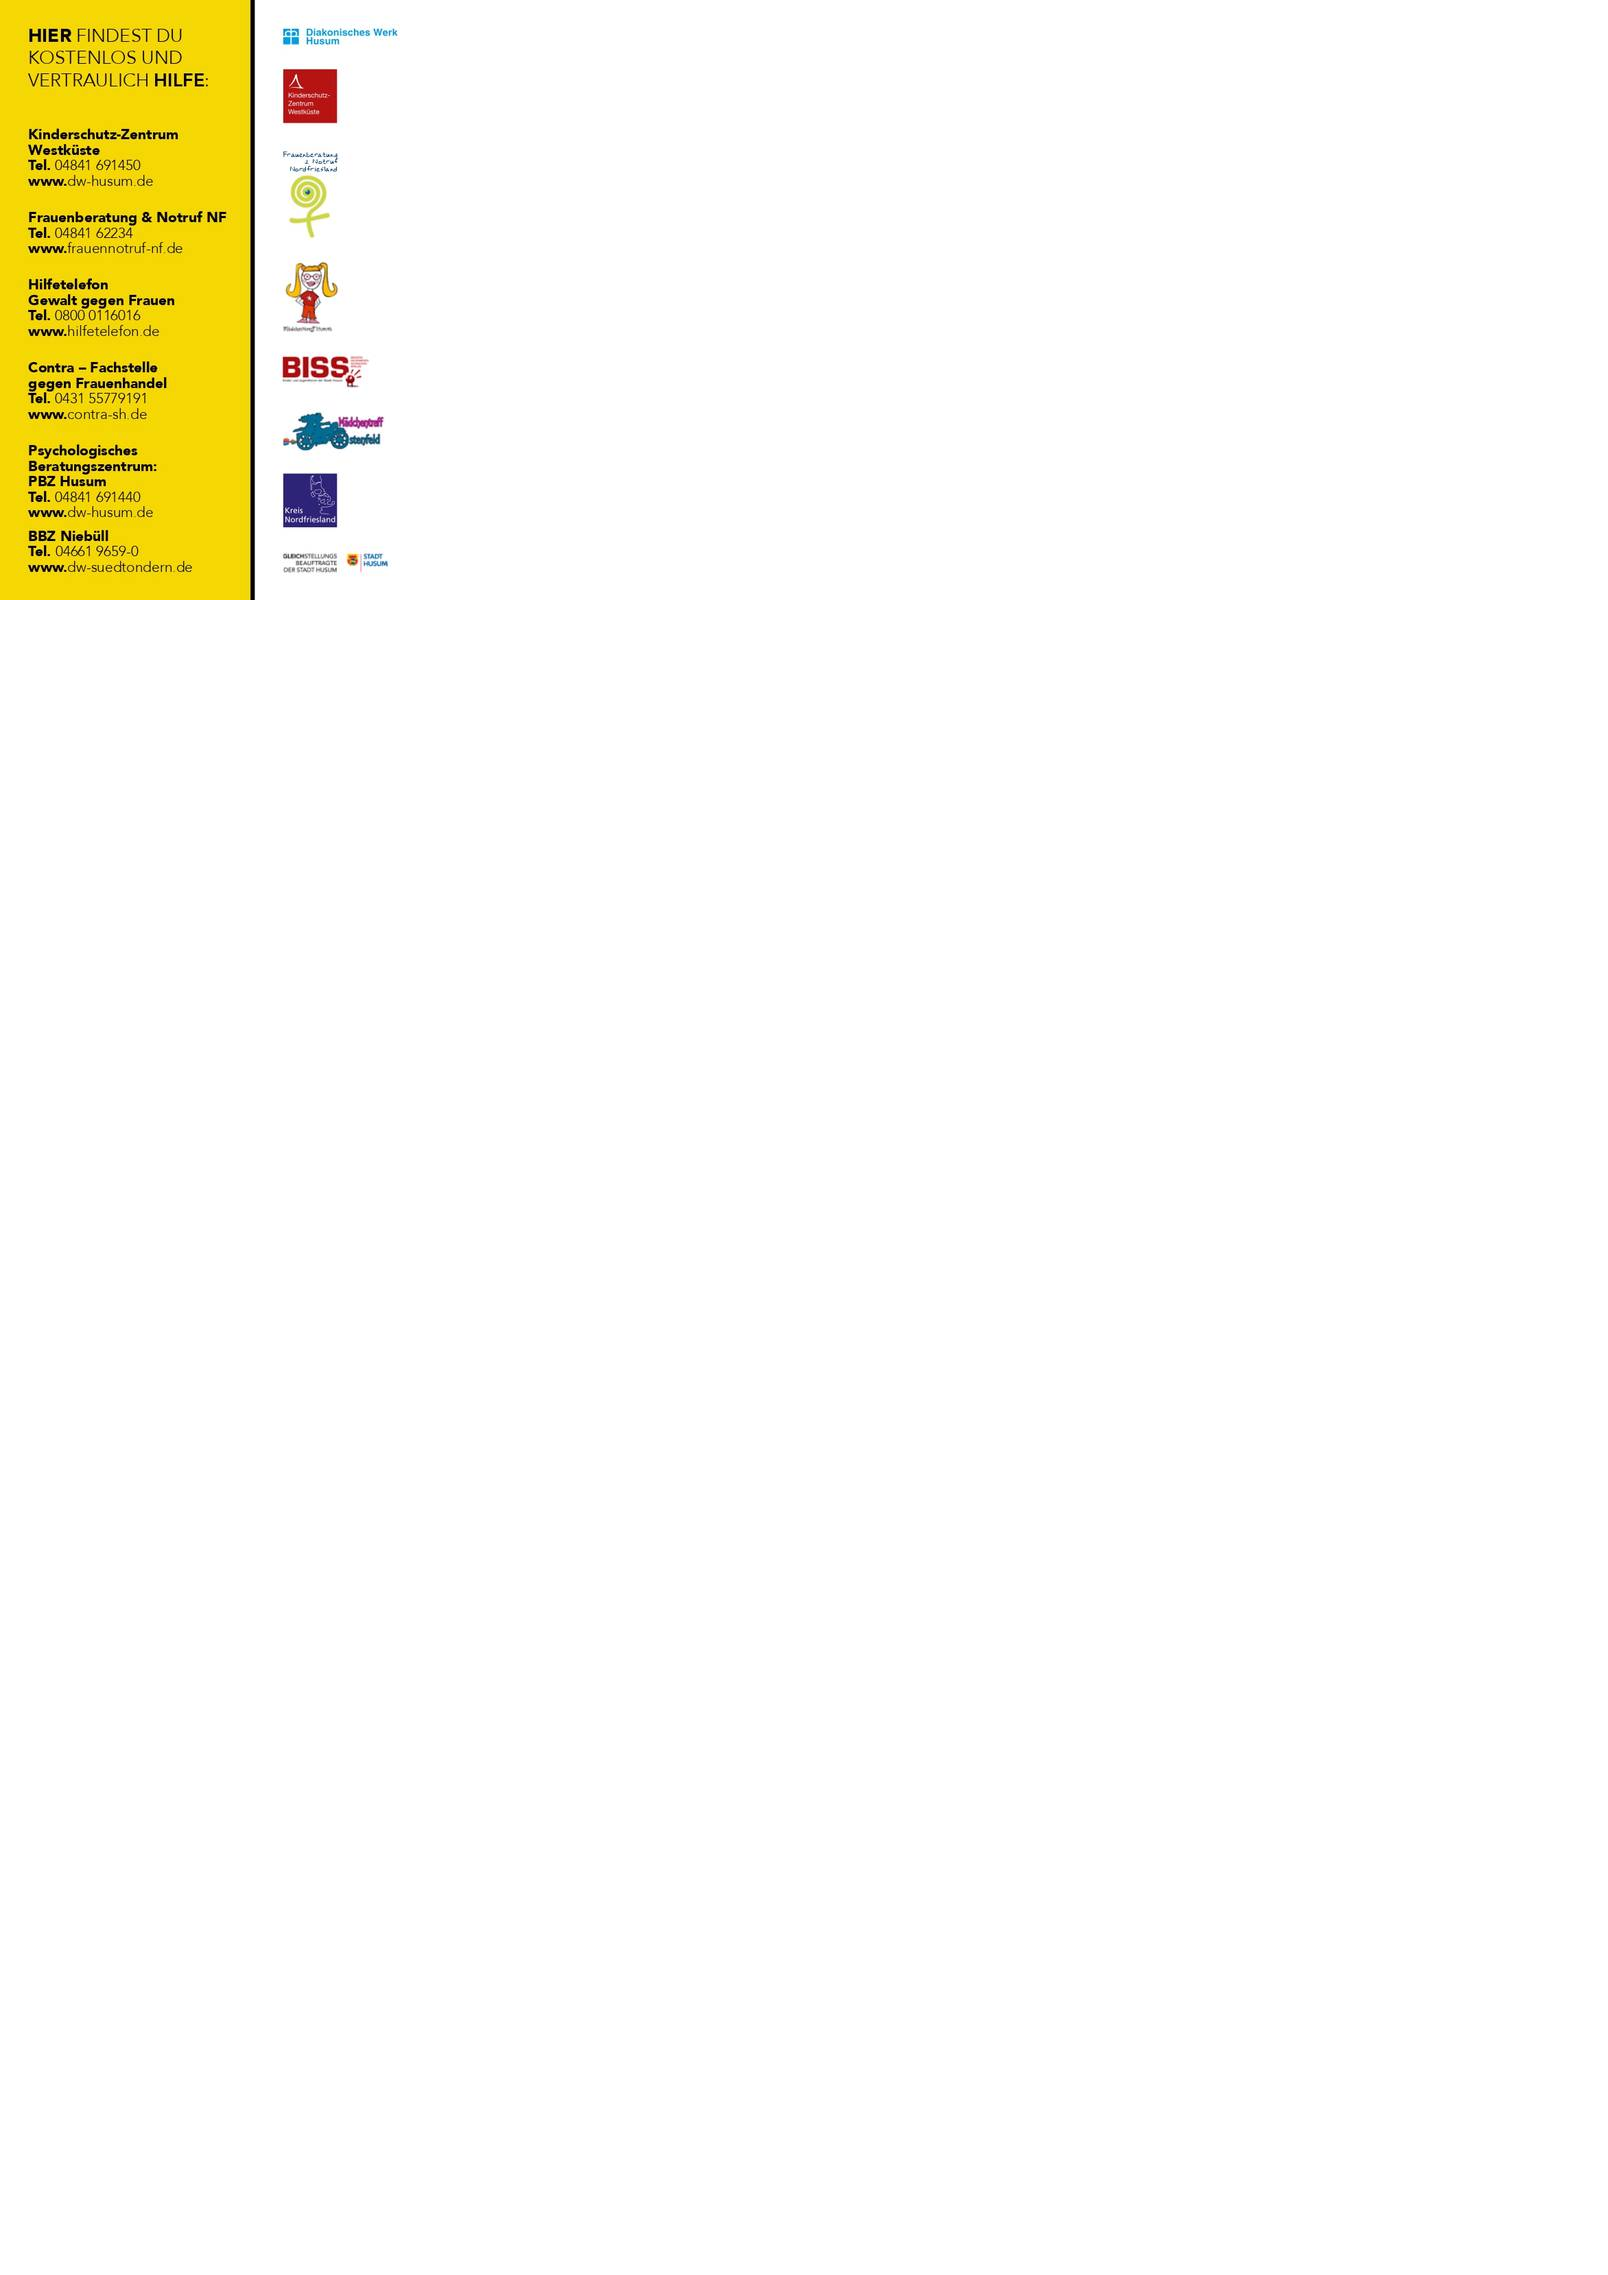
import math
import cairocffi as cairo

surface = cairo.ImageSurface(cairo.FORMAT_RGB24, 1608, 2275)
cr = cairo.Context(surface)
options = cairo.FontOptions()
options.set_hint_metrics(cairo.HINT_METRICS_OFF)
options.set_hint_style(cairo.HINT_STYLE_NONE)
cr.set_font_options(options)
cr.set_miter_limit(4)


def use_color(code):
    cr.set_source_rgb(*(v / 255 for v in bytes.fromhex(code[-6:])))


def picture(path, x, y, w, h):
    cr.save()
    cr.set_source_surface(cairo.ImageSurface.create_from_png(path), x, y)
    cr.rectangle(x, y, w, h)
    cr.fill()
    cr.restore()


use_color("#ffffff")
cr.paint()
picture("img1.png", 0, 0, 400, 600)
surface.write_to_png("result.png")
